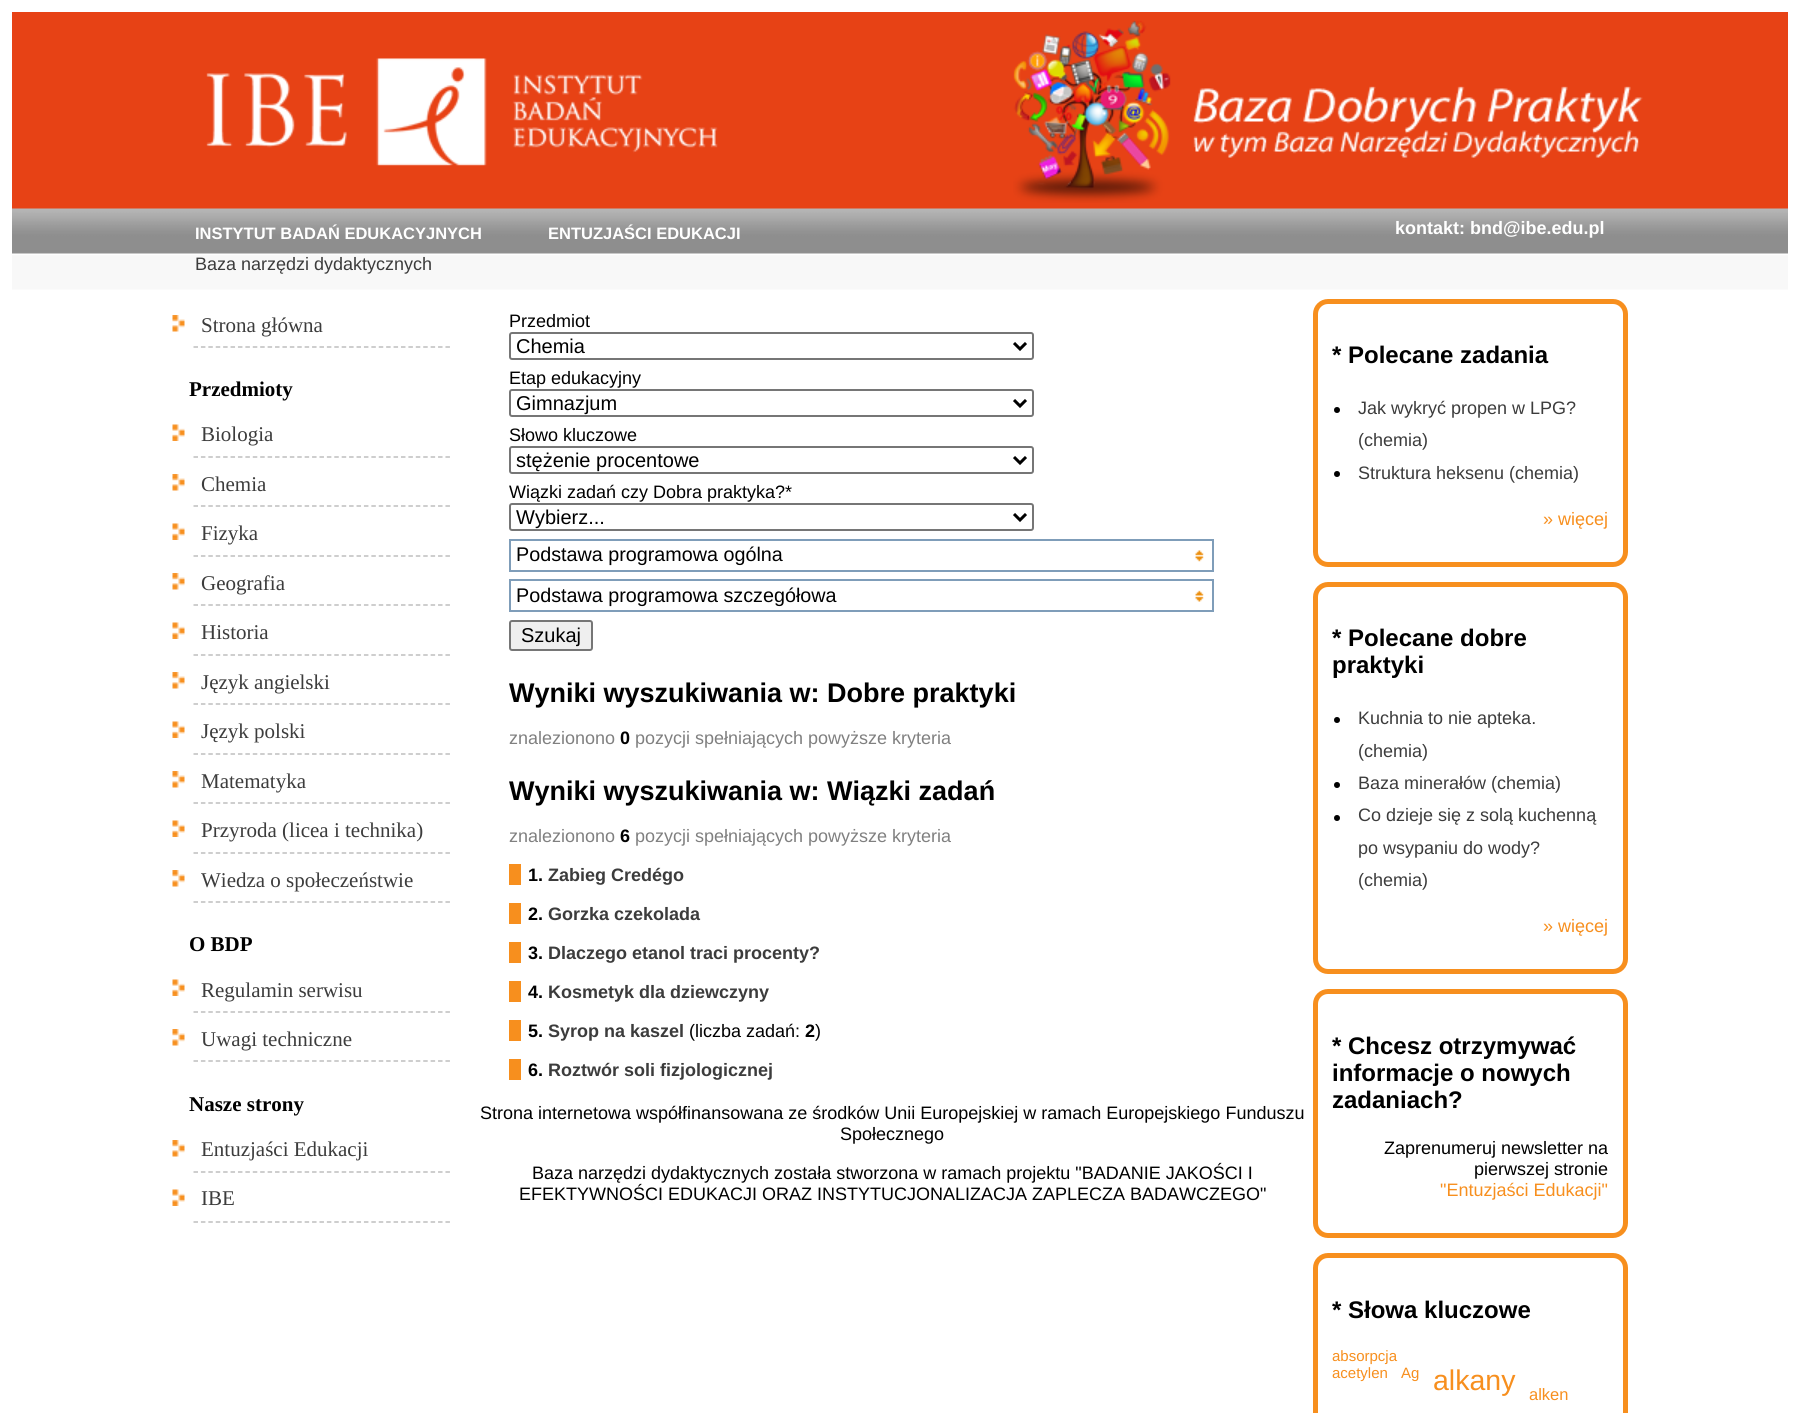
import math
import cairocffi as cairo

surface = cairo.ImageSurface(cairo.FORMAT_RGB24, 1800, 1413)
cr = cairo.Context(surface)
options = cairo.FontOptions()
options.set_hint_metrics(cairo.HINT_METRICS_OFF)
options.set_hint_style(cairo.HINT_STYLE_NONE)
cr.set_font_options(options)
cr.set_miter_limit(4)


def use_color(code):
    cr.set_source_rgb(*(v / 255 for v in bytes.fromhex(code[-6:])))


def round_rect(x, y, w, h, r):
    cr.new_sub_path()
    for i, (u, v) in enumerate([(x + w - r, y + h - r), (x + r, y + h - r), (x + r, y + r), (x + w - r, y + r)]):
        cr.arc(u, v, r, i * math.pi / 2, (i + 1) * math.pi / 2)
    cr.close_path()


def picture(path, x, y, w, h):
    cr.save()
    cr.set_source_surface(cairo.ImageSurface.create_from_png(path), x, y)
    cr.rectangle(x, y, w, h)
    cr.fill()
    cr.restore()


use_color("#ffffff")
cr.paint()
picture("img1.png", 12, 12, 1776, 278)
picture("img2.png", 206, 58, 512, 108)
picture("img3.png", 1013, 20, 630, 183)
cr.select_font_face("Liberation Sans", cairo.FONT_SLANT_NORMAL, cairo.FONT_WEIGHT_BOLD)
cr.set_font_size(16.5)
use_color("#ffffff")
cr.move_to(195, 239)
cr.show_text("INSTYTUT BADAŃ EDUKACYJNYCH")
cr.move_to(548, 239)
cr.show_text("ENTUZJAŚCI EDUKACJI")
cr.set_font_size(18)
cr.move_to(1395, 234)
cr.show_text("kontakt: bnd@ibe.edu.pl")
cr.select_font_face("Liberation Sans")
use_color("#3c3c3c")
cr.move_to(195, 270)
cr.show_text("Baza narzędzi dydaktycznych")
picture("img4.png", 172, 315, 13, 17)
cr.new_path()
cr.move_to(193.5, 347)
cr.line_to(450, 347)
use_color("#bebebe")
cr.set_line_width(1.5)
cr.set_dash([4.5, 2.91])
cr.stroke()
cr.select_font_face("Liberation Serif")
cr.set_font_size(21)
use_color("#3c3c3c")
cr.move_to(201, 332)
cr.show_text("Strona główna")
cr.select_font_face("Liberation Serif", cairo.FONT_SLANT_NORMAL, cairo.FONT_WEIGHT_BOLD)
use_color("#000000")
cr.move_to(189, 396)
cr.show_text("Przedmioty")
picture("img5.png", 172, 424, 13, 17)
cr.new_path()
cr.move_to(193.5, 457)
cr.line_to(450, 457)
use_color("#bebebe")
cr.stroke()
cr.select_font_face("Liberation Serif")
use_color("#3c3c3c")
cr.move_to(201, 441)
cr.show_text("Biologia")
picture("img4.png", 172, 474, 13, 17)
cr.new_path()
cr.move_to(193.5, 506)
cr.line_to(450, 506)
use_color("#bebebe")
cr.stroke()
use_color("#3c3c3c")
cr.move_to(201, 491)
cr.show_text("Chemia")
picture("img5.png", 172, 523, 13, 17)
cr.new_path()
cr.move_to(193.5, 556)
cr.line_to(450, 556)
use_color("#bebebe")
cr.stroke()
use_color("#3c3c3c")
cr.move_to(201, 540)
cr.show_text("Fizyka")
picture("img4.png", 172, 573, 13, 17)
cr.new_path()
cr.move_to(193.5, 605)
cr.line_to(450, 605)
use_color("#bebebe")
cr.stroke()
use_color("#3c3c3c")
cr.move_to(201, 590)
cr.show_text("Geografia")
picture("img5.png", 172, 622, 13, 17)
cr.new_path()
cr.move_to(193.5, 655)
cr.line_to(450, 655)
use_color("#bebebe")
cr.stroke()
use_color("#3c3c3c")
cr.move_to(201, 639)
cr.show_text("Historia")
picture("img4.png", 172, 672, 13, 17)
cr.new_path()
cr.move_to(193.5, 704)
cr.line_to(450, 704)
use_color("#bebebe")
cr.stroke()
use_color("#3c3c3c")
cr.move_to(201, 689)
cr.show_text("Język angielski")
picture("img5.png", 172, 721, 13, 17)
cr.new_path()
cr.move_to(193.5, 754)
cr.line_to(450, 754)
use_color("#bebebe")
cr.stroke()
use_color("#3c3c3c")
cr.move_to(201, 738)
cr.show_text("Język polski")
picture("img4.png", 172, 771, 13, 17)
cr.new_path()
cr.move_to(193.5, 803)
cr.line_to(450, 803)
use_color("#bebebe")
cr.stroke()
use_color("#3c3c3c")
cr.move_to(201, 788)
cr.show_text("Matematyka")
picture("img5.png", 172, 820, 13, 17)
cr.new_path()
cr.move_to(193.5, 853)
cr.line_to(450, 853)
use_color("#bebebe")
cr.stroke()
use_color("#3c3c3c")
cr.move_to(201, 837)
cr.show_text("Przyroda (licea i technika)")
picture("img4.png", 172, 870, 13, 17)
cr.new_path()
cr.move_to(193.5, 902)
cr.line_to(450, 902)
use_color("#bebebe")
cr.stroke()
use_color("#3c3c3c")
cr.move_to(201, 887)
cr.show_text("Wiedza o społeczeństwie")
cr.select_font_face("Liberation Serif", cairo.FONT_SLANT_NORMAL, cairo.FONT_WEIGHT_BOLD)
use_color("#000000")
cr.move_to(189, 951)
cr.show_text("O BDP")
picture("img5.png", 172, 979, 13, 17)
cr.new_path()
cr.move_to(193.5, 1012)
cr.line_to(450, 1012)
use_color("#bebebe")
cr.stroke()
cr.select_font_face("Liberation Serif")
use_color("#3c3c3c")
cr.move_to(201, 997)
cr.show_text("Regulamin serwisu")
picture("img4.png", 172, 1029, 13, 17)
cr.new_path()
cr.move_to(193.5, 1061)
cr.line_to(450, 1061)
use_color("#bebebe")
cr.stroke()
use_color("#3c3c3c")
cr.move_to(201, 1046)
cr.show_text("Uwagi techniczne")
cr.select_font_face("Liberation Serif", cairo.FONT_SLANT_NORMAL, cairo.FONT_WEIGHT_BOLD)
use_color("#000000")
cr.move_to(189, 1111)
cr.show_text("Nasze strony")
picture("img4.png", 172, 1140, 13, 17)
cr.new_path()
cr.move_to(193.5, 1172)
cr.line_to(450, 1172)
use_color("#bebebe")
cr.stroke()
cr.select_font_face("Liberation Serif")
use_color("#3c3c3c")
cr.move_to(201, 1156)
cr.show_text("Entuzjaści Edukacji")
picture("img5.png", 172, 1189, 13, 17)
cr.new_path()
cr.move_to(193.5, 1222)
cr.line_to(450, 1222)
use_color("#bebebe")
cr.stroke()
use_color("#3c3c3c")
cr.move_to(201, 1205)
cr.show_text("IBE")
cr.select_font_face("Liberation Sans")
cr.set_font_size(18)
use_color("#000000")
cr.move_to(509, 327)
cr.show_text("Przedmiot")
round_rect(510, 333, 523, 26, 2)
use_color("#767676")
cr.set_line_width(2)
cr.set_dash([])
cr.stroke()
cr.new_path()
cr.move_to(1014, 343)
cr.line_to(1020, 349)
cr.line_to(1026, 343)
use_color("#000000")
cr.set_line_width(3)
cr.stroke()
cr.set_font_size(20)
cr.move_to(516, 353)
cr.show_text("Chemia")
cr.set_font_size(18)
cr.move_to(509, 384)
cr.show_text("Etap edukacyjny")
round_rect(510, 390, 523, 26, 2)
use_color("#767676")
cr.set_line_width(2)
cr.stroke()
cr.new_path()
cr.move_to(1014, 400)
cr.line_to(1020, 406)
cr.line_to(1026, 400)
use_color("#000000")
cr.set_line_width(3)
cr.stroke()
cr.set_font_size(20)
cr.move_to(516, 410)
cr.show_text("Gimnazjum")
cr.set_font_size(18)
cr.move_to(509, 441)
cr.show_text("Słowo kluczowe")
round_rect(510, 447, 523, 26, 2)
use_color("#767676")
cr.set_line_width(2)
cr.stroke()
cr.new_path()
cr.move_to(1014, 457)
cr.line_to(1020, 463)
cr.line_to(1026, 457)
use_color("#000000")
cr.set_line_width(3)
cr.stroke()
cr.set_font_size(20)
cr.move_to(516, 467)
cr.show_text("stężenie procentowe")
cr.set_font_size(18)
cr.move_to(509, 498)
cr.show_text("Wiązki zadań czy Dobra praktyka?*")
round_rect(510, 504, 523, 26, 2)
use_color("#767676")
cr.set_line_width(2)
cr.stroke()
cr.new_path()
cr.move_to(1014, 514)
cr.line_to(1020, 520)
cr.line_to(1026, 514)
use_color("#000000")
cr.set_line_width(3)
cr.stroke()
cr.set_font_size(20)
cr.move_to(516, 524)
cr.show_text("Wybierz...")
cr.rectangle(510, 540, 703, 31)
use_color("#7f9db9")
cr.set_line_width(2)
cr.stroke()
cr.set_font_size(19.75)
use_color("#000000")
cr.move_to(516, 561)
cr.show_text("Podstawa programowa ogólna")
picture("img6.png", 1195, 550, 9, 12)
cr.rectangle(510, 580, 703, 31)
use_color("#7f9db9")
cr.stroke()
use_color("#000000")
cr.move_to(516, 602)
cr.show_text("Podstawa programowa szczegółowa")
picture("img7.png", 1195, 590, 9, 12)
use_color("#efefef")
round_rect(510, 621, 82, 29, 2)
cr.fill_preserve()
use_color("#767676")
cr.stroke()
cr.set_font_size(20)
use_color("#000000")
cr.move_to(521, 642)
cr.show_text("Szukaj")
cr.select_font_face("Liberation Sans", cairo.FONT_SLANT_NORMAL, cairo.FONT_WEIGHT_BOLD)
cr.set_font_size(27)
cr.move_to(509, 702)
cr.show_text("Wyniki wyszukiwania w: Dobre praktyki")
cr.select_font_face("Liberation Sans")
cr.set_font_size(18)
use_color("#808080")
cr.move_to(509, 744)
cr.show_text("znalezionono")
cr.select_font_face("Liberation Sans", cairo.FONT_SLANT_NORMAL, cairo.FONT_WEIGHT_BOLD)
use_color("#000000")
cr.move_to(620, 744)
cr.show_text("0")
cr.select_font_face("Liberation Sans")
use_color("#808080")
cr.move_to(635, 744)
cr.show_text("pozycji spełniających powyższe kryteria")
cr.select_font_face("Liberation Sans", cairo.FONT_SLANT_NORMAL, cairo.FONT_WEIGHT_BOLD)
cr.set_font_size(27)
use_color("#000000")
cr.move_to(509, 800)
cr.show_text("Wyniki wyszukiwania w: Wiązki zadań")
cr.select_font_face("Liberation Sans")
cr.set_font_size(18)
use_color("#808080")
cr.move_to(509, 842)
cr.show_text("znalezionono")
cr.select_font_face("Liberation Sans", cairo.FONT_SLANT_NORMAL, cairo.FONT_WEIGHT_BOLD)
use_color("#000000")
cr.move_to(620, 842)
cr.show_text("6")
cr.select_font_face("Liberation Sans")
use_color("#808080")
cr.move_to(635, 842)
cr.show_text("pozycji spełniających powyższe kryteria")
use_color("#f78f1e")
cr.rectangle(509, 864, 12, 21)
cr.fill()
cr.select_font_face("Liberation Sans", cairo.FONT_SLANT_NORMAL, cairo.FONT_WEIGHT_BOLD)
use_color("#000000")
cr.move_to(528, 881)
cr.show_text("1.")
use_color("#3c3c3c")
cr.move_to(548, 881)
cr.show_text("Zabieg Credégo")
use_color("#f78f1e")
cr.rectangle(509, 903, 12, 21)
cr.fill()
use_color("#000000")
cr.move_to(528, 920)
cr.show_text("2.")
use_color("#3c3c3c")
cr.move_to(548, 920)
cr.show_text("Gorzka czekolada")
use_color("#f78f1e")
cr.rectangle(509, 942, 12, 21)
cr.fill()
use_color("#000000")
cr.move_to(528, 959)
cr.show_text("3.")
use_color("#3c3c3c")
cr.move_to(548, 959)
cr.show_text("Dlaczego etanol traci procenty?")
use_color("#f78f1e")
cr.rectangle(509, 981, 12, 21)
cr.fill()
use_color("#000000")
cr.move_to(528, 998)
cr.show_text("4.")
use_color("#3c3c3c")
cr.move_to(548, 998)
cr.show_text("Kosmetyk dla dziewczyny")
use_color("#f78f1e")
cr.rectangle(509, 1020, 12, 21)
cr.fill()
use_color("#000000")
cr.move_to(528, 1037)
cr.show_text("5.")
use_color("#3c3c3c")
cr.move_to(548, 1037)
cr.show_text("Syrop na kaszel")
cr.select_font_face("Liberation Sans")
use_color("#000000")
cr.move_to(689, 1037)
cr.show_text("(liczba zadań:")
cr.select_font_face("Liberation Sans", cairo.FONT_SLANT_NORMAL, cairo.FONT_WEIGHT_BOLD)
cr.move_to(805, 1037)
cr.show_text("2")
cr.select_font_face("Liberation Sans")
cr.move_to(815, 1037)
cr.show_text(")")
use_color("#f78f1e")
cr.rectangle(509, 1059, 12, 21)
cr.fill()
cr.select_font_face("Liberation Sans", cairo.FONT_SLANT_NORMAL, cairo.FONT_WEIGHT_BOLD)
use_color("#000000")
cr.move_to(528, 1076)
cr.show_text("6.")
use_color("#3c3c3c")
cr.move_to(548, 1076)
cr.show_text("Roztwór soli fizjologicznej")
round_rect(1315.5, 301.5, 310, 263, 12.5)
use_color("#f78f1e")
cr.set_line_width(5)
cr.stroke()
cr.set_font_size(24)
use_color("#000000")
cr.move_to(1332, 363)
cr.show_text("* Polecane zadania")
cr.new_path()
cr.arc(1337, 410, 3, 0, 2 * math.pi)
cr.fill()
cr.select_font_face("Liberation Sans")
cr.set_font_size(18)
use_color("#3c3c3c")
cr.move_to(1358, 414)
cr.show_text("Jak wykryć propen w LPG?")
cr.move_to(1358, 446)
cr.show_text("(chemia)")
use_color("#000000")
cr.new_path()
cr.arc(1337, 474, 3, 0, 2 * math.pi)
cr.fill()
use_color("#3c3c3c")
cr.move_to(1358, 479)
cr.show_text("Struktura heksenu (chemia)")
use_color("#f78f1e")
cr.move_to(1543, 525)
cr.show_text("» więcej")
round_rect(1315.5, 584.5, 310, 387, 12.5)
cr.stroke()
cr.select_font_face("Liberation Sans", cairo.FONT_SLANT_NORMAL, cairo.FONT_WEIGHT_BOLD)
cr.set_font_size(24)
use_color("#000000")
cr.move_to(1332, 646)
cr.show_text("* Polecane dobre")
cr.move_to(1332, 673)
cr.show_text("praktyki")
cr.new_path()
cr.arc(1337, 720, 3, 0, 2 * math.pi)
cr.fill()
cr.select_font_face("Liberation Sans")
cr.set_font_size(18)
use_color("#3c3c3c")
cr.move_to(1358, 724)
cr.show_text("Kuchnia to nie apteka.")
cr.move_to(1358, 757)
cr.show_text("(chemia)")
use_color("#000000")
cr.new_path()
cr.arc(1337, 785, 3, 0, 2 * math.pi)
cr.fill()
use_color("#3c3c3c")
cr.move_to(1358, 789)
cr.show_text("Baza minerałów (chemia)")
use_color("#000000")
cr.new_path()
cr.arc(1337, 818, 3, 0, 2 * math.pi)
cr.fill()
use_color("#3c3c3c")
cr.move_to(1358, 821)
cr.show_text("Co dzieje się z solą kuchenną")
cr.move_to(1358, 854)
cr.show_text("po wsypaniu do wody?")
cr.move_to(1358, 886)
cr.show_text("(chemia)")
use_color("#f78f1e")
cr.move_to(1543, 932)
cr.show_text("» więcej")
round_rect(1315.5, 991.5, 310, 244, 12.5)
cr.stroke()
cr.select_font_face("Liberation Sans", cairo.FONT_SLANT_NORMAL, cairo.FONT_WEIGHT_BOLD)
cr.set_font_size(24)
use_color("#000000")
cr.move_to(1332, 1054)
cr.show_text("* Chcesz otrzymywać")
cr.move_to(1332, 1081)
cr.show_text("informacje o nowych")
cr.move_to(1332, 1108)
cr.show_text("zadaniach?")
cr.select_font_face("Liberation Sans")
cr.set_font_size(18)
cr.move_to(1384, 1154)
cr.show_text("Zaprenumeruj newsletter na")
cr.move_to(1474, 1175)
cr.show_text("pierwszej stronie")
use_color("#f78f1e")
cr.move_to(1440, 1196)
cr.show_text("\"Entuzjaści Edukacji\"")
round_rect(1315.5, 1255.5, 310, 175, 12.5)
cr.stroke()
cr.select_font_face("Liberation Sans", cairo.FONT_SLANT_NORMAL, cairo.FONT_WEIGHT_BOLD)
cr.set_font_size(24)
use_color("#000000")
cr.move_to(1332, 1318)
cr.show_text("* Słowa kluczowe")
cr.select_font_face("Liberation Sans")
cr.set_font_size(15)
use_color("#f78f1e")
cr.move_to(1332, 1361)
cr.show_text("absorpcja")
cr.move_to(1332, 1378)
cr.show_text("acetylen")
cr.move_to(1401, 1378)
cr.show_text("Ag")
cr.set_font_size(28.5)
cr.move_to(1433, 1390)
cr.show_text("alkany")
cr.set_font_size(16.5)
cr.move_to(1529, 1400)
cr.show_text("alken")
cr.set_font_size(18)
use_color("#000000")
cr.move_to(480, 1119)
cr.show_text("Strona internetowa współfinansowana ze środków Unii Europejskiej w ramach Europejskiego Funduszu")
cr.move_to(840, 1140)
cr.show_text("Społecznego")
cr.move_to(532, 1179)
cr.show_text("Baza narzędzi dydaktycznych została stworzona w ramach projektu \"BADANIE JAKOŚCI I")
cr.move_to(519, 1200)
cr.show_text("EFEKTYWNOŚCI EDUKACJI ORAZ INSTYTUCJONALIZACJA ZAPLECZA BADAWCZEGO\"")
surface.write_to_png("result.png")
